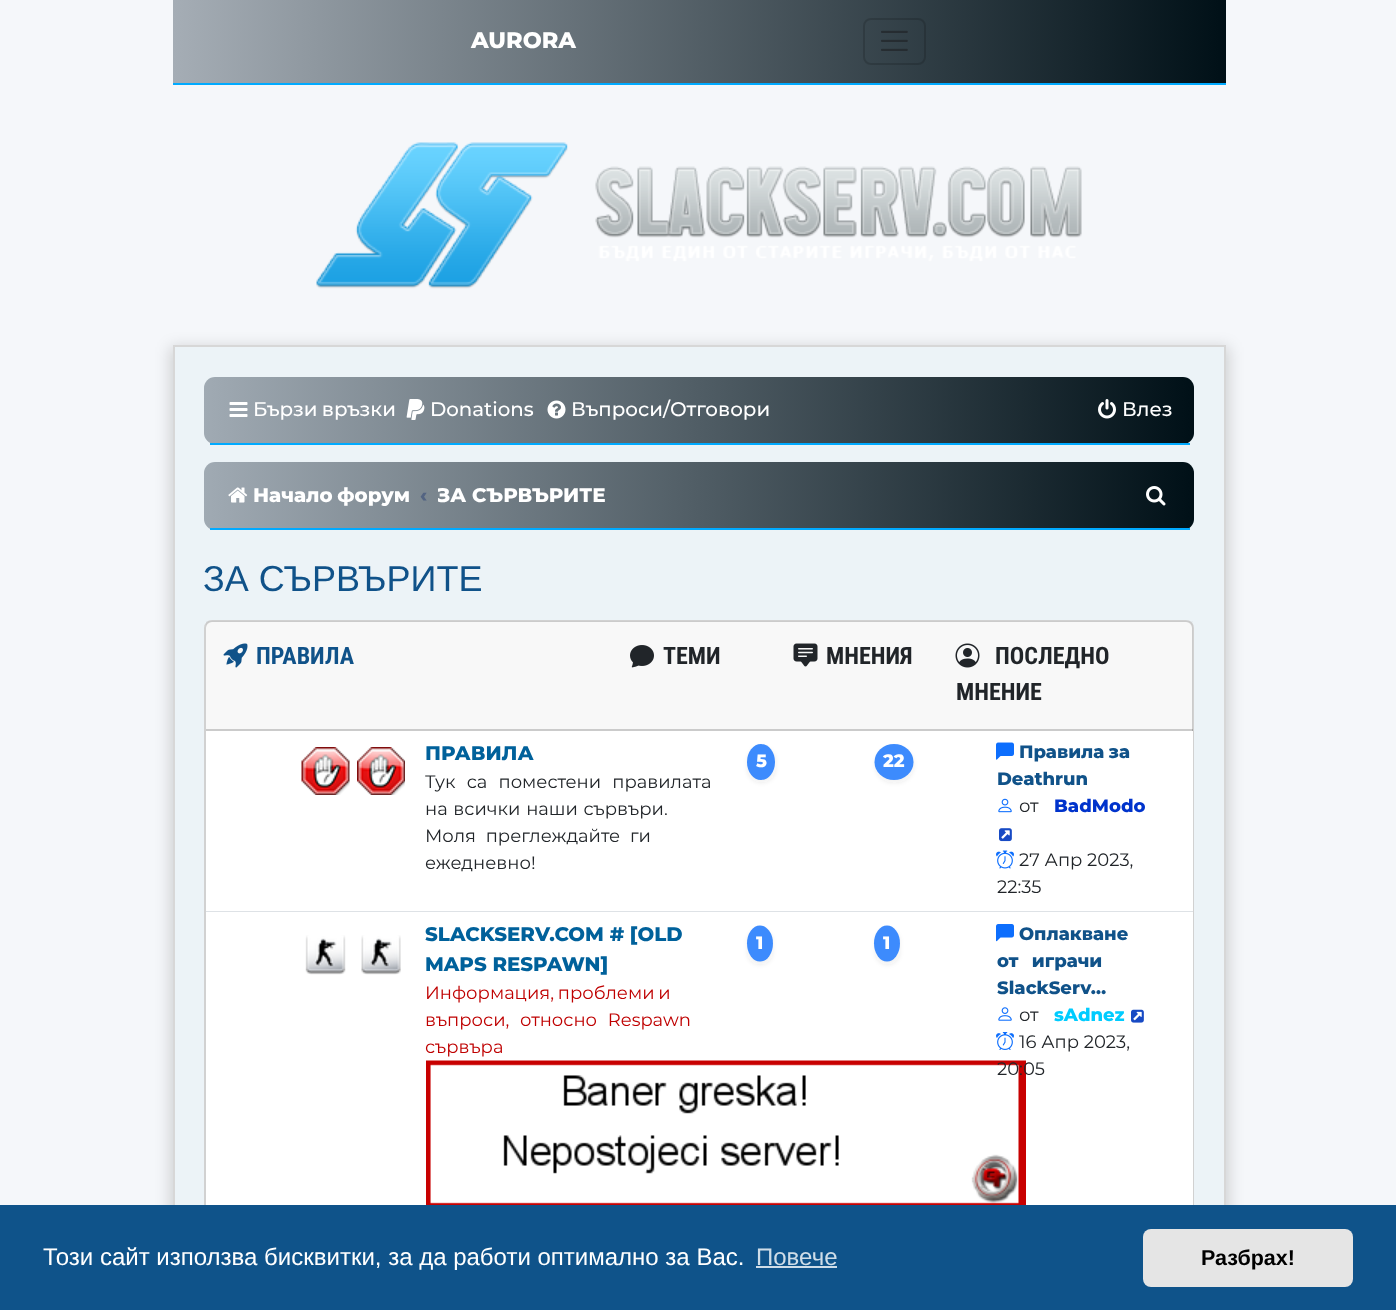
<?xml version="1.0" encoding="UTF-8"?>
<svg xmlns="http://www.w3.org/2000/svg" width="1396" height="1310">
    <defs>
        <linearGradient id="g1" gradientUnits="userSpaceOnUse" x1="173" y1="41" x2="1226" y2="41"><stop offset="0" stop-color="#A5ADB5"/><stop offset="1" stop-color="#001017"/></linearGradient>
        <filter id="blur1" x="-50%" y="-200%" width="200%" height="500%"><feGaussianBlur stdDeviation="7.5"/></filter>
        <linearGradient id="g2" gradientUnits="userSpaceOnUse" x1="204" y1="410" x2="1194" y2="410"><stop offset="0" stop-color="#A0AAB3"/><stop offset="1" stop-color="#001017"/></linearGradient>
        <linearGradient id="g3" gradientUnits="userSpaceOnUse" x1="204" y1="495" x2="1194" y2="495"><stop offset="0" stop-color="#A0AAB3"/><stop offset="1" stop-color="#001017"/></linearGradient>
        <clipPath id="clip1"><rect x="438" y="474" width="168" height="44"/></clipPath>
        <filter id="blur2" x="-50%" y="-200%" width="200%" height="500%"><feGaussianBlur stdDeviation="2"/></filter>
    </defs>
    <rect width="100%" height="100%" fill="#F5F7FA"/>
    <rect x="173" y="0" width="1053" height="83" fill="url(#g1)"/>
    <rect x="173" y="83" width="1053" height="2" fill="#00AAFF"/>
    <text x="471" y="48" font-family="Montserrat" font-size="22.5" font-weight="800" fill="#FFFFFF">AURORA</text>
    <rect x="864" y="19" width="61" height="45" rx="7" fill="none" stroke="#000000" stroke-opacity="0.15" stroke-width="2"/>
    <image x="881" y="30" width="27" height="21" href="img_01.png"/>
    <image x="316" y="142" width="766" height="147" href="img_02.png"/>
    <rect x="170" y="347" width="1059" height="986" fill="#000000" fill-opacity="0.16" filter="url(#blur1)"/>
    <rect x="175" y="347" width="1049" height="858" fill="#ECF3F7"/>
    <rect x="174" y="346" width="1051" height="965" fill="none" stroke="#D7D7D7" stroke-width="2"/>
    <rect x="204" y="377" width="990" height="67" rx="11" fill="url(#g2)"/>
    <rect x="210" y="443" width="980" height="2" fill="#00AAFF"/>
    <image x="229" y="402" width="19" height="15" href="img_03.png"/>
    <text x="253" y="416" word-spacing="-1" font-family="Montserrat" font-size="19.75" font-weight="500" fill="#FFFFFF">Бързи връзки</text>
    <image x="406" y="399" width="19" height="21" href="img_04.png"/>
    <text x="430" y="416" font-family="Montserrat" font-size="19.75" font-weight="500" fill="#FFFFFF">Donations</text>
    <image x="547" y="400" width="19" height="19" href="img_05.png"/>
    <text x="571" y="416" font-family="Montserrat" font-size="19.75" font-weight="500" fill="#FFFFFF">Въпроси/Отговори</text>
    <image x="1098" y="399" width="18" height="20" href="img_06.png"/>
    <text x="1122" y="416" font-family="Montserrat" font-size="19.75" font-weight="500" fill="#FFFFFF">Влез</text>
    <rect x="204" y="462" width="990" height="68" rx="11" fill="url(#g3)"/>
    <rect x="210" y="528" width="980" height="2" fill="#00AAFF"/>
    <image x="228" y="487" width="20" height="16" href="img_07.png"/>
    <text x="253" y="502" word-spacing="-1" font-family="Montserrat" font-size="19.75" font-weight="800" fill="#FFFFFF">Начало форум</text>
    <text x="420" y="502" font-family="Montserrat" font-size="19.75" font-weight="800" fill="#536482">‹</text>
    <g clip-path="url(#clip1)">
        <text x="437" y="502" font-family="Montserrat" font-size="19.75" font-weight="800" fill="#FFFFFF">ЗА СЪРВЪРИТЕ</text>
    </g>
    <image x="1146" y="486" width="20" height="20" href="img_08.png"/>
    <text x="203" y="591" font-family="Liberation Sans" font-size="36" fill="#105289">ЗА СЪРВЪРИТЕ</text>
    <rect x="204" y="620" width="990" height="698" rx="8" fill="#FFFFFF"/>
    <rect x="205" y="621" width="988" height="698" rx="7" fill="none" stroke="#000000" stroke-opacity="0.18" stroke-width="2"/>
    <rect x="206" y="621" width="987" height="110" fill="#212529" fill-opacity="0.03"/>
    <rect x="206" y="729" width="987" height="2" fill="#000000" fill-opacity="0.18"/>
    <image x="223" y="643" width="25" height="25" href="img_09.png"/>
    <text x="256" y="664" font-family="Roboto Condensed" font-size="24" font-weight="700" fill="#105289">ПРАВИЛА</text>
    <image x="630" y="645" width="24" height="23" href="img_10.png"/>
    <text x="663" y="664" font-family="Roboto Condensed" font-size="24" font-weight="700" fill="#212529">ТЕМИ</text>
    <image x="793" y="643" width="25" height="24" href="img_11.png"/>
    <text x="826" y="664" font-family="Roboto Condensed" font-size="24" font-weight="700" fill="#212529">МНЕНИЯ</text>
    <image x="955" y="643" width="25" height="25" href="img_12.png"/>
    <text x="995" y="664" font-family="Roboto Condensed" font-size="24" font-weight="700" fill="#212529">ПОСЛЕДНО</text>
    <text x="956" y="700" font-family="Roboto Condensed" font-size="24" font-weight="700" fill="#212529">МНЕНИЕ</text>
    <rect x="1192" y="731" width="1" height="180" fill="#FFFFFF"/>
    <rect x="206" y="911" width="987" height="1" fill="#DEE2E6"/>
    <image x="301" y="747" width="49" height="48" href="img_13.png"/>
    <image x="357" y="747" width="48" height="48" href="img_14.png"/>
    <text x="425" y="760" font-family="Montserrat" font-size="19.75" font-weight="800" fill="#00619B">ПРАВИЛА</text>
    <text font-family="Montserrat" font-size="18" fill="#212529">
        <tspan x="425" y="788" word-spacing="6.5">Тук са поместени правилата</tspan>
        <tspan x="425" y="815" word-spacing="1">на всички наши сървъри.</tspan>
        <tspan x="425" y="842" word-spacing="5">Моля преглеждайте ги</tspan>
        <tspan x="425" y="869">ежедневно!</tspan>
    </text>
    <rect x="747" y="747" width="29" height="36" rx="14.5" fill="#333333" fill-opacity="0.07" filter="url(#blur2)"/>
    <ellipse cx="761" cy="762" rx="14" ry="18" fill="#3D8BFD"/>
    <text x="756" y="767" font-family="Montserrat" font-size="18" font-weight="800" fill="#FFFFFF">5</text>
    <rect x="875" y="747" width="39" height="36" rx="18" fill="#333333" fill-opacity="0.07" filter="url(#blur2)"/>
    <ellipse cx="894" cy="762" rx="19.5" ry="18" fill="#3D8BFD"/>
    <text x="883" y="767" font-family="Montserrat" font-size="18" font-weight="800" fill="#FFFFFF">22</text>
    <image x="996" y="742" width="18" height="18" href="img_15.png"/>
    <text x="1019" y="758" word-spacing="-1" font-family="Montserrat" font-size="18" font-weight="800" fill="#105289">Правила за</text>
    <text x="997" y="785" font-family="Montserrat" font-size="18" font-weight="800" fill="#105289">Deathrun</text>
    <image x="998" y="798" width="14" height="15" href="img_16.png"/>
    <text x="1019" y="812" font-family="Montserrat" font-size="18" fill="#212529">от</text>
    <text x="1054" y="812" font-family="Montserrat" font-size="18" font-weight="800" fill="#0033CC">BadModo</text>
    <image x="999" y="828" width="13" height="14" href="img_17.png"/>
    <image x="996" y="850" width="18" height="19" href="img_18.png"/>
    <text x="1019" y="866" font-family="Montserrat" font-size="18" fill="#212529">27 Апр 2023,</text>
    <text x="997" y="893" font-family="Montserrat" font-size="18" fill="#212529">22:35</text>
    <rect x="1192" y="912" width="1" height="293" fill="#FFFFFF"/>
    <image x="305" y="935" width="41" height="40" href="img_19.png"/>
    <image x="361" y="935" width="40" height="40" href="img_20.png"/>
    <text font-family="Montserrat" font-size="19.75" font-weight="800" fill="#00619B">
        <tspan x="425" y="941">SLACKSERV.COM # [OLD</tspan>
        <tspan x="425" y="971">MAPS RESPAWN]</tspan>
    </text>
    <text font-family="Montserrat" font-size="18" fill="#BF0000">
        <tspan x="425" y="999" word-spacing="-1">Информация, проблеми и</tspan>
        <tspan x="425" y="1026" word-spacing="6">въпроси, относно Respawn</tspan>
        <tspan x="425" y="1053">сървъра</tspan>
    </text>
    <image x="426" y="1060" width="600" height="145" href="img_21.png"/>
    <rect x="747" y="929" width="26" height="36" rx="13" fill="#333333" fill-opacity="0.07" filter="url(#blur2)"/>
    <ellipse cx="760" cy="943.5" rx="13" ry="18" fill="#3D8BFD"/>
    <text x="756" y="949" font-family="Montserrat" font-size="18" font-weight="800" fill="#FFFFFF">1</text>
    <rect x="875" y="929" width="25" height="36" rx="12.5" fill="#333333" fill-opacity="0.07" filter="url(#blur2)"/>
    <ellipse cx="887" cy="943.5" rx="13" ry="18" fill="#3D8BFD"/>
    <text x="883" y="949" font-family="Montserrat" font-size="18" font-weight="800" fill="#FFFFFF">1</text>
    <image x="996" y="924" width="18" height="18" href="img_22.png"/>
    <text x="1019" y="940" font-family="Montserrat" font-size="18" font-weight="800" fill="#105289">Оплакване</text>
    <text font-family="Montserrat" font-size="18" font-weight="800" fill="#105289">
        <tspan x="997" y="967" word-spacing="8">от играчи</tspan>
        <tspan x="997" y="994">SlackServ…</tspan>
    </text>
    <image x="998" y="1007" width="14" height="14" href="img_23.png"/>
    <text x="1019" y="1021" font-family="Montserrat" font-size="18" fill="#212529">от</text>
    <text x="1054" y="1021" font-family="Montserrat" font-size="18" font-weight="800" fill="#00CCFF">sAdnez</text>
    <image x="1131" y="1009" width="13" height="14" href="img_24.png"/>
    <image x="996" y="1032" width="18" height="18" href="img_25.png"/>
    <text x="1019" y="1048" font-family="Montserrat" font-size="18" fill="#212529">16 Апр 2023,</text>
    <text x="997" y="1075" font-family="Montserrat" font-size="18" fill="#212529">20:05</text>
    <rect x="0" y="1205" width="1396" height="105" fill="#0F538A"/>
    <text x="43" y="1265" font-family="Liberation Sans" font-size="24" fill="#FFFFFF">Този сайт използва бисквитки, за да работи оптимално за Вас.</text>
    <text x="756" y="1265" font-family="Liberation Sans" font-size="24" fill="#CFDDE8">Повече</text>
    <rect x="756" y="1266" width="81" height="2" fill="#CFDDE8"/>
    <rect x="1143" y="1229" width="210" height="58" rx="8" fill="#E5E5E5"/>
    <text x="1201" y="1265" font-family="Liberation Sans" font-size="21.5" font-weight="700" fill="#000000">Разбрах!</text>
</svg>
